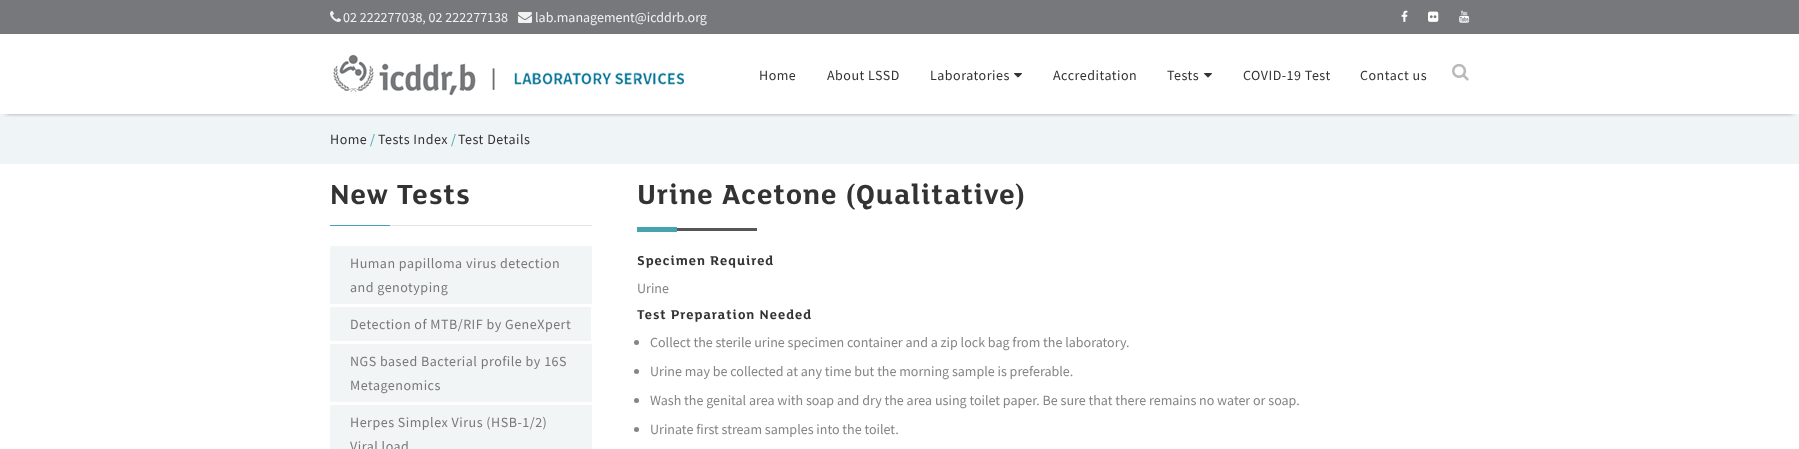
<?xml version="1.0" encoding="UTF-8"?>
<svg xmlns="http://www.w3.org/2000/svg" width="1799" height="449">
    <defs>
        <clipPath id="clip1"><rect x="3" y="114" width="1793" height="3"/></clipPath>
        <filter id="blur1" x="-50%" y="-200%" width="200%" height="500%"><feGaussianBlur stdDeviation="2.5"/></filter>
    </defs>
    <rect width="100%" height="100%" fill="#FFFFFF"/>
    <rect x="0" y="0" width="1799" height="34" fill="#76787C"/>
    <image x="330" y="11" width="11" height="11" href="img_01.png"/>
    <text x="343" y="22" font-family="Source Sans Pro" font-size="14" fill="#F1F1F1">02 222277038, 02 222277138</text>
    <image x="518" y="12" width="14" height="11" href="img_02.png"/>
    <text x="535" y="22" font-family="Source Sans Pro" font-size="14" fill="#F1F1F1">lab.management@icddrb.org</text>
    <image x="1401" y="10" width="7" height="12" href="img_03.png"/>
    <image x="1428" y="11" width="11" height="11" href="img_04.png"/>
    <image x="1459" y="10" width="11" height="13" href="img_05.png"/>
    <rect x="0" y="114" width="1799" height="50" fill="#EFF4F7"/>
    <g clip-path="url(#clip1)">
        <rect x="6" y="46" width="1787" height="67" fill="#000000" fill-opacity="0.5" filter="url(#blur1)"/>
    </g>
    <image x="333" y="54" width="351" height="42" href="img_06.png"/>
    <text x="759" y="80" font-family="Source Sans Pro" font-size="14" letter-spacing="0.5" fill="#333333">Home</text>
    <text x="827" y="80" font-family="Source Sans Pro" font-size="14" letter-spacing="0.5" fill="#333333">About LSSD</text>
    <text x="930" y="80" font-family="Source Sans Pro" font-size="14" letter-spacing="0.5" fill="#333333">Laboratories</text>
    <image x="1014" y="73" width="8" height="5" href="img_07.png"/>
    <text x="1053" y="80" font-family="Source Sans Pro" font-size="14" letter-spacing="0.5" fill="#333333">Accreditation</text>
    <text x="1167" y="80" font-family="Source Sans Pro" font-size="14" letter-spacing="0.5" fill="#333333">Tests</text>
    <image x="1204" y="73" width="8" height="5" href="img_07.png"/>
    <text x="1243" y="80" font-family="Source Sans Pro" font-size="14" letter-spacing="0.5" fill="#333333">COVID-19 Test</text>
    <text x="1360" y="80" font-family="Source Sans Pro" font-size="14" letter-spacing="0.5" fill="#333333">Contact us</text>
    <image x="1452" y="63" width="17" height="18" href="img_08.png"/>
    <text x="330" y="144" font-family="Source Sans Pro" font-size="14" letter-spacing="0.5" fill="#333333">Home</text>
    <text x="370" y="144" font-family="Source Sans Pro" font-size="14" fill="#47A3AD">/</text>
    <text x="378" y="144" font-family="Source Sans Pro" font-size="14" letter-spacing="0.5" fill="#333333">Tests Index</text>
    <text x="451" y="144" font-family="Source Sans Pro" font-size="14" fill="#47A3AD">/</text>
    <text x="458" y="144" font-family="Source Sans Pro" font-size="14" letter-spacing="0.5" fill="#333333">Test Details</text>
    <text x="330" y="204" font-family="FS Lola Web" font-size="30" font-weight="700" letter-spacing="1" fill="#333333">New Tests</text>
    <rect x="330" y="225" width="60" height="1" fill="#47A3AD"/>
    <rect x="390" y="225" width="202" height="1" fill="#E3E3E3"/>
    <rect x="330" y="246" width="262" height="58" fill="#F2F5F5"/>
    <text font-family="Source Sans Pro" font-size="14" letter-spacing="0.5" fill="#797979">
        <tspan x="350" y="268">Human papilloma virus detection</tspan>
        <tspan x="350" y="292">and genotyping</tspan>
    </text>
    <rect x="330" y="307" width="261" height="34" fill="#F2F5F5"/>
    <text x="350" y="329" font-family="Source Sans Pro" font-size="14" letter-spacing="0.5" fill="#797979">Detection of MTB/RIF by GeneXpert</text>
    <rect x="330" y="344" width="262" height="58" fill="#F2F5F5"/>
    <text font-family="Source Sans Pro" font-size="14" letter-spacing="0.5" fill="#797979">
        <tspan x="350" y="366">NGS based Bacterial profile by 16S</tspan>
        <tspan x="350" y="390">Metagenomics</tspan>
    </text>
    <rect x="330" y="405" width="262" height="44" fill="#F2F5F5"/>
    <text font-family="Source Sans Pro" font-size="14" letter-spacing="0.5" fill="#797979">
        <tspan x="350" y="427">Herpes Simplex Virus (HSB-1/2)</tspan>
        <tspan x="350" y="451">Viral load</tspan>
    </text>
    <text x="637" y="204" font-family="FS Lola Web" font-size="30" font-weight="700" letter-spacing="1" fill="#333333">Urine Acetone (Qualitative)</text>
    <rect x="637" y="227" width="40" height="5" fill="#47A3AD"/>
    <rect x="677" y="228" width="80" height="3" fill="#565656"/>
    <text x="637" y="265" font-family="FS Lola Web" font-size="14" font-weight="700" letter-spacing="1" fill="#333333">Specimen Required</text>
    <text x="637" y="293" font-family="Source Sans Pro" font-size="14" fill="#858585">Urine</text>
    <text x="637" y="319" font-family="FS Lola Web" font-size="14" font-weight="700" letter-spacing="1" fill="#333333">Test Preparation Needed</text>
    <circle cx="636.5" cy="342.5" r="2.5" fill="#858585"/>
    <text x="650" y="347" font-family="Source Sans Pro" font-size="14" fill="#858585">Collect the sterile urine specimen container and a zip lock bag from the laboratory.</text>
    <circle cx="636.5" cy="371.5" r="2.5" fill="#858585"/>
    <text x="650" y="376" font-family="Source Sans Pro" font-size="14" fill="#858585">Urine may be collected at any time but the morning sample is preferable.</text>
    <circle cx="636.5" cy="400.5" r="2.5" fill="#858585"/>
    <text x="650" y="405" font-family="Source Sans Pro" font-size="14" fill="#858585">Wash the genital area with soap and dry the area using toilet paper. Be sure that there remains no water or soap.</text>
    <circle cx="636.5" cy="429.5" r="2.5" fill="#858585"/>
    <text x="650" y="434" font-family="Source Sans Pro" font-size="14" fill="#858585">Urinate first stream samples into the toilet.</text>
</svg>
